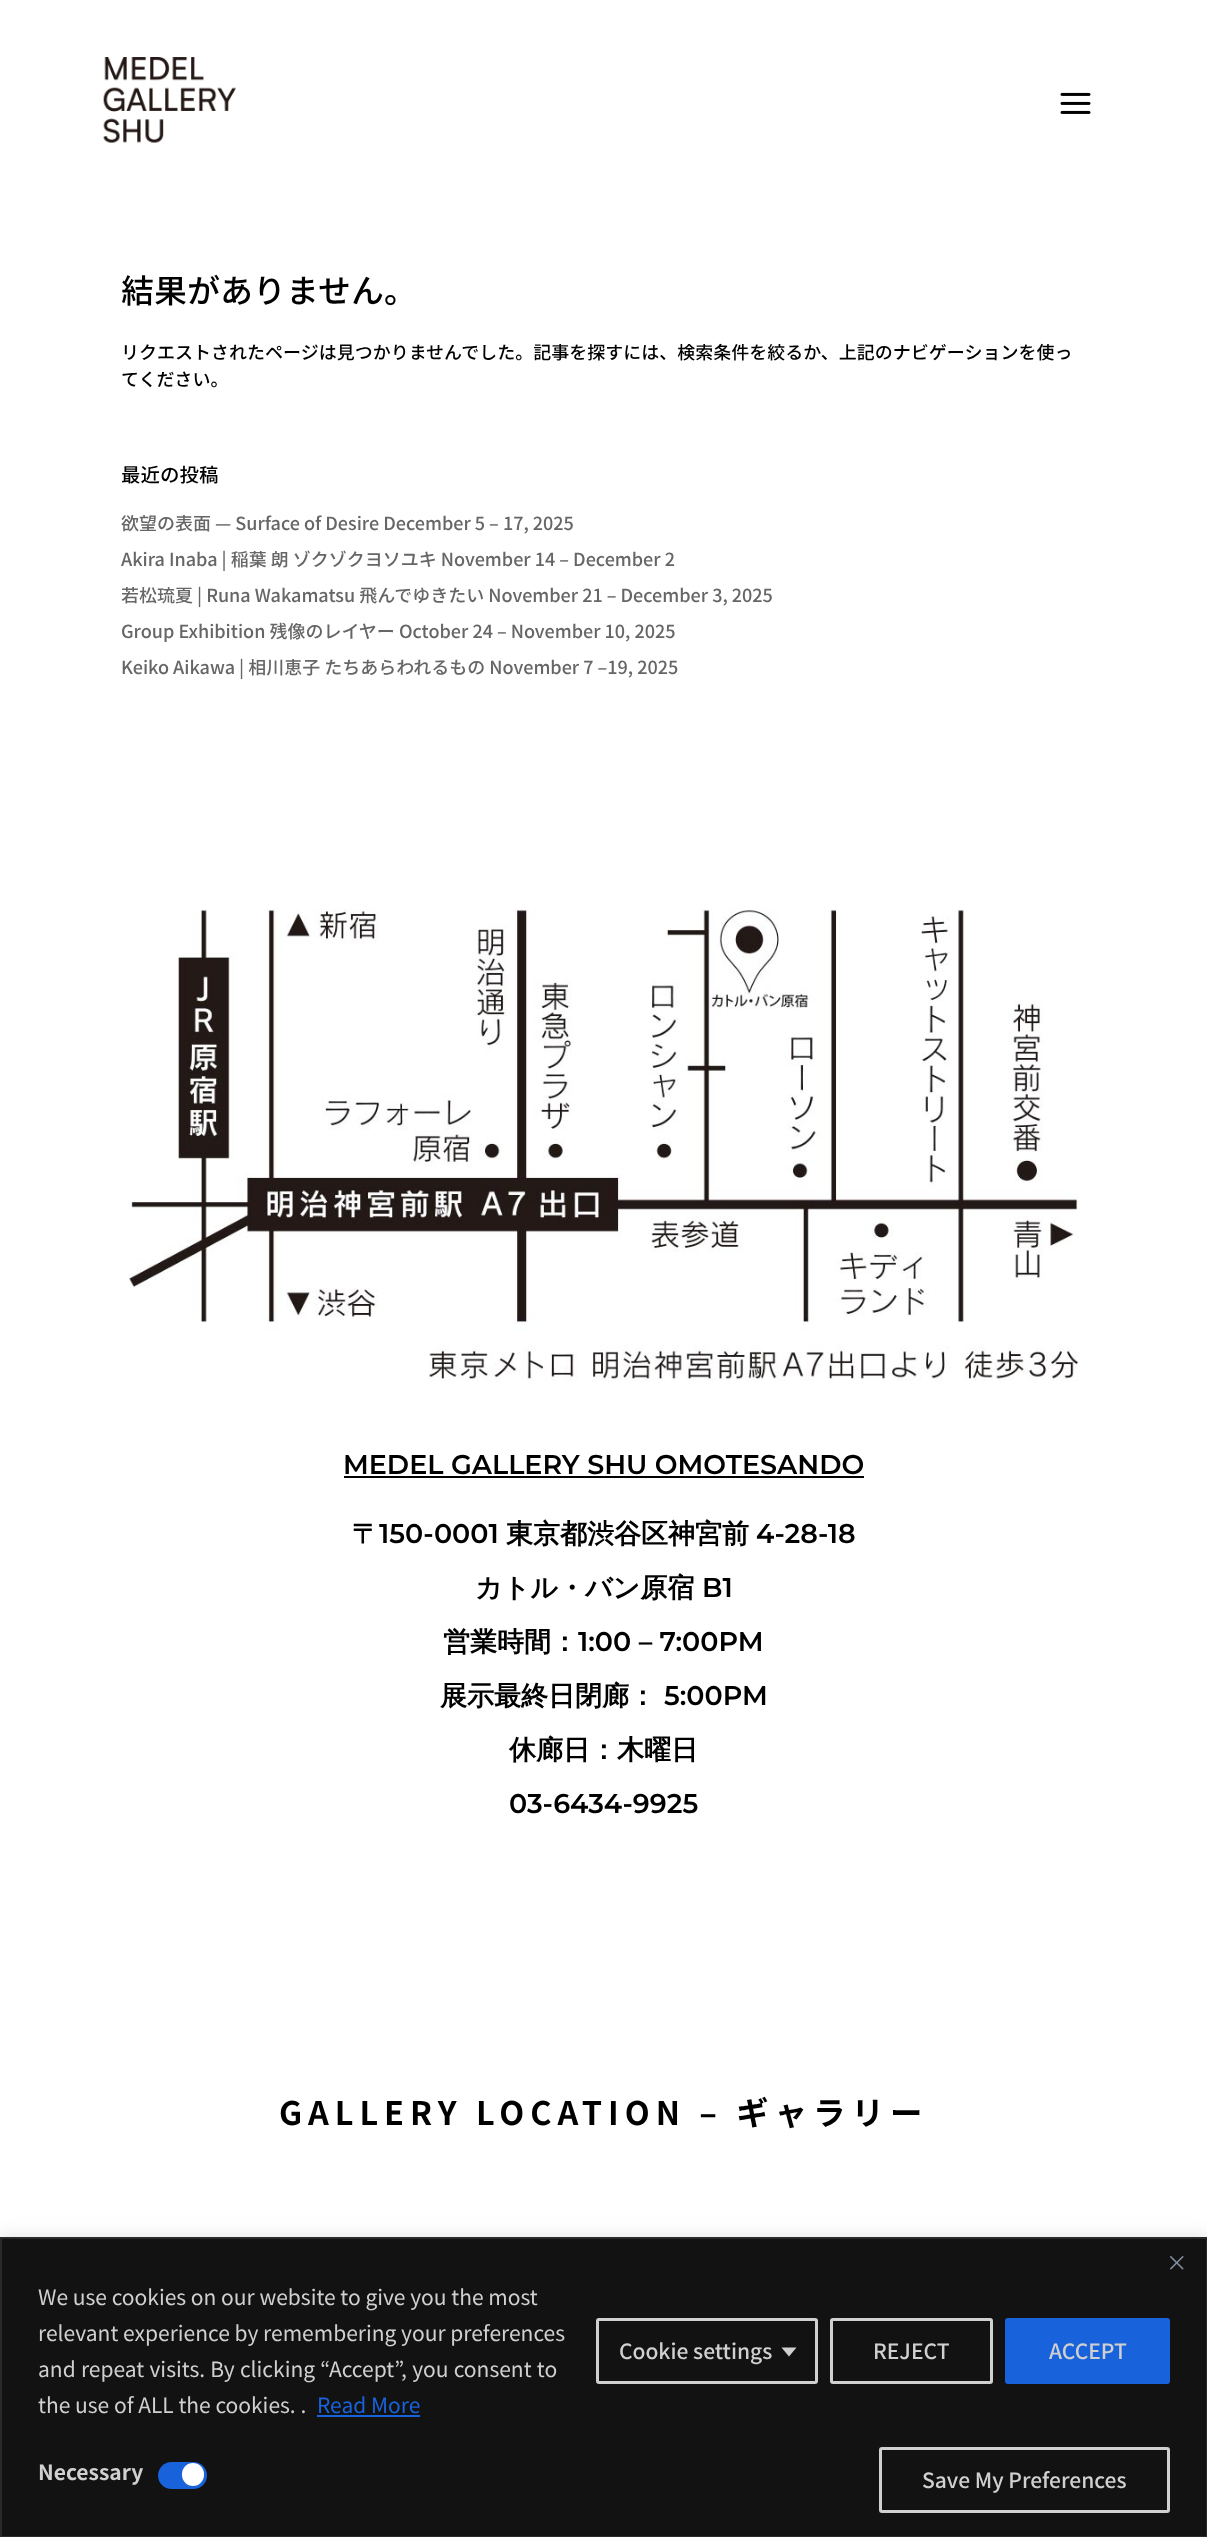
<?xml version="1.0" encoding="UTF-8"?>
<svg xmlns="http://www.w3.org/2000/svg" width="1207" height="2537">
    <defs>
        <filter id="blur1" x="-50%" y="-200%" width="200%" height="500%"><feGaussianBlur stdDeviation="7.5"/></filter>
    </defs>
    <rect width="100%" height="100%" fill="#FFFFFF"/>
    <image x="103" y="57" width="133" height="86" href="img_01.png"/>
    <image x="1060" y="92" width="31" height="22" href="img_02.png"/>
    <text x="121" y="303" font-family="Noto Sans JP" font-size="33" font-weight="500" fill="#000000">結果がありません。</text>
    <text font-family="Noto Sans JP" font-size="18" font-weight="500" fill="#000000">
        <tspan x="121" y="359">リクエストされたページは見つかりませんでした。記事を探すには、検索条件を絞るか、上記のナビゲーションを使っ</tspan>
        <tspan x="121" y="386">てください。</tspan>
    </text>
    <text x="121" y="482" font-family="Noto Sans JP" font-size="19.5" font-weight="500" fill="#000000">最近の投稿</text>
    <text x="121" y="530" font-family="Noto Sans JP" font-size="18" font-weight="500" fill="#666666">欲望の表面 — Surface of Desire December 5 – 17, 2025</text>
    <text x="121" y="566" font-family="Noto Sans JP" font-size="18" font-weight="500" fill="#666666">Akira Inaba | 稲葉 朗 ゾクゾクヨソユキ November 14 – December 2</text>
    <text x="121" y="602" font-family="Noto Sans JP" font-size="18" font-weight="500" fill="#666666">若松琉夏 | Runa Wakamatsu 飛んでゆきたい November 21 – December 3, 2025</text>
    <text x="121" y="638" font-family="Noto Sans JP" font-size="18" font-weight="500" fill="#666666">Group Exhibition 残像のレイヤー October 24 – November 10, 2025</text>
    <text x="121" y="674" font-family="Noto Sans JP" font-size="18" font-weight="500" fill="#666666">Keiko Aikawa | 相川恵子 たちあらわれるもの November 7 –19, 2025</text>
    <image x="128" y="909" width="951" height="472" href="img_03.png"/>
    <text x="343" y="1474" font-family="Montserrat" font-size="27" font-weight="600" fill="#000000">MEDEL GALLERY SHU OMOTESANDO</text>
    <rect x="344" y="1476" width="520" height="2" fill="#000000"/>
    <text x="352" y="1543" font-family="WenQuanYi Zen Hei" font-size="27" font-weight="700" fill="#000000">〒</text>
    <text x="379" y="1543" font-family="Montserrat" font-size="27" font-weight="600" fill="#000000">150-0001</text>
    <text x="506" y="1543" font-family="WenQuanYi Zen Hei" font-size="27" font-weight="700" fill="#000000">東京都渋谷区神宮前</text>
    <text x="756" y="1543" font-family="Montserrat" font-size="27" font-weight="600" fill="#000000">4-28-18</text>
    <text x="475" y="1597" font-family="WenQuanYi Zen Hei" font-size="27" font-weight="700" fill="#000000">カトル・バン原宿</text>
    <text x="702" y="1597" font-family="Montserrat" font-size="27" font-weight="600" fill="#000000">B1</text>
    <text x="443" y="1651" font-family="WenQuanYi Zen Hei" font-size="27" font-weight="700" fill="#000000">営業時間：</text>
    <text x="578" y="1651" font-family="Montserrat" font-size="27" font-weight="600" fill="#000000">1:00 – 7:00PM</text>
    <text x="440" y="1705" font-family="WenQuanYi Zen Hei" font-size="27" font-weight="700" fill="#000000">展示最終日閉廊：</text>
    <text x="664" y="1705" font-family="Montserrat" font-size="27" font-weight="600" fill="#000000">5:00PM</text>
    <text x="509" y="1759" font-family="WenQuanYi Zen Hei" font-size="27" font-weight="700" fill="#000000">休廊日：木曜日</text>
    <text x="509" y="1813" font-family="Montserrat" font-size="27" font-weight="600" fill="#000000">03-6434-9925</text>
    <text x="279" y="2125" font-family="Noto Sans JP" font-size="32.4" font-weight="700" letter-spacing="6" fill="#000000">GALLERY LOCATION – ギャラリー</text>
    <rect x="0" y="2235" width="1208" height="302" fill="#ACABAB" fill-opacity="0.3" filter="url(#blur1)"/>
    <rect x="1" y="2238" width="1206" height="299" fill="#121212" stroke="#2A2A2A" stroke-width="2"/>
    <image x="1170" y="2256" width="14" height="14" href="img_04.png"/>
    <text font-family="Noto Sans JP" font-size="21" fill="#D0D0D0">
        <tspan x="38" y="2305">We use cookies on our website to give you the most</tspan>
        <tspan x="38" y="2341">relevant experience by remembering your preferences</tspan>
        <tspan x="38" y="2377" word-spacing="0.5">and repeat visits. By clicking “Accept”, you consent to</tspan>
        <tspan x="38" y="2413">the use of ALL the cookies. .</tspan>
    </text>
    <text x="317" y="2413" font-family="Noto Sans JP" font-size="21" fill="#1863DC">Read More</text>
    <rect x="317" y="2415" width="103" height="2" fill="#1863DC"/>
    <rect x="597.5" y="2319.5" width="219" height="63" rx="1.5" fill="none" stroke="#D0D0D0" stroke-width="3"/>
    <text x="619" y="2359" font-family="Noto Sans JP" font-size="21" font-weight="500" fill="#D0D0D0">Cookie settings</text>
    <path d="M 781.5 2347.5 H 796.5 L 789 2356.5 Z" fill="#D0D0D0"/>
    <rect x="831.5" y="2319.5" width="160" height="63" rx="1.5" fill="none" stroke="#D0D0D0" stroke-width="3"/>
    <text x="873" y="2359" font-family="Noto Sans JP" font-size="21" font-weight="500" fill="#D0D0D0">REJECT</text>
    <rect x="1006.5" y="2319.5" width="162" height="63" rx="1.5" fill="#1863DC" stroke="#1863DC" stroke-width="3"/>
    <text x="1049" y="2359" font-family="Noto Sans JP" font-size="21" font-weight="500" fill="#D0D0D0">ACCEPT</text>
    <text x="38" y="2480" font-family="Noto Sans JP" font-size="21" font-weight="700" fill="#D0D0D0">Necessary</text>
    <rect x="158" y="2462" width="49" height="27" rx="13.5" fill="#1863DC"/>
    <rect x="182" y="2463" width="22" height="23" rx="11" fill="#FFFFFF"/>
    <rect x="880.5" y="2448.5" width="288" height="63" rx="1.5" fill="none" stroke="#D0D0D0" stroke-width="3"/>
    <text x="922" y="2488" font-family="Noto Sans JP" font-size="21" font-weight="500" fill="#D0D0D0">Save My Preferences</text>
</svg>
